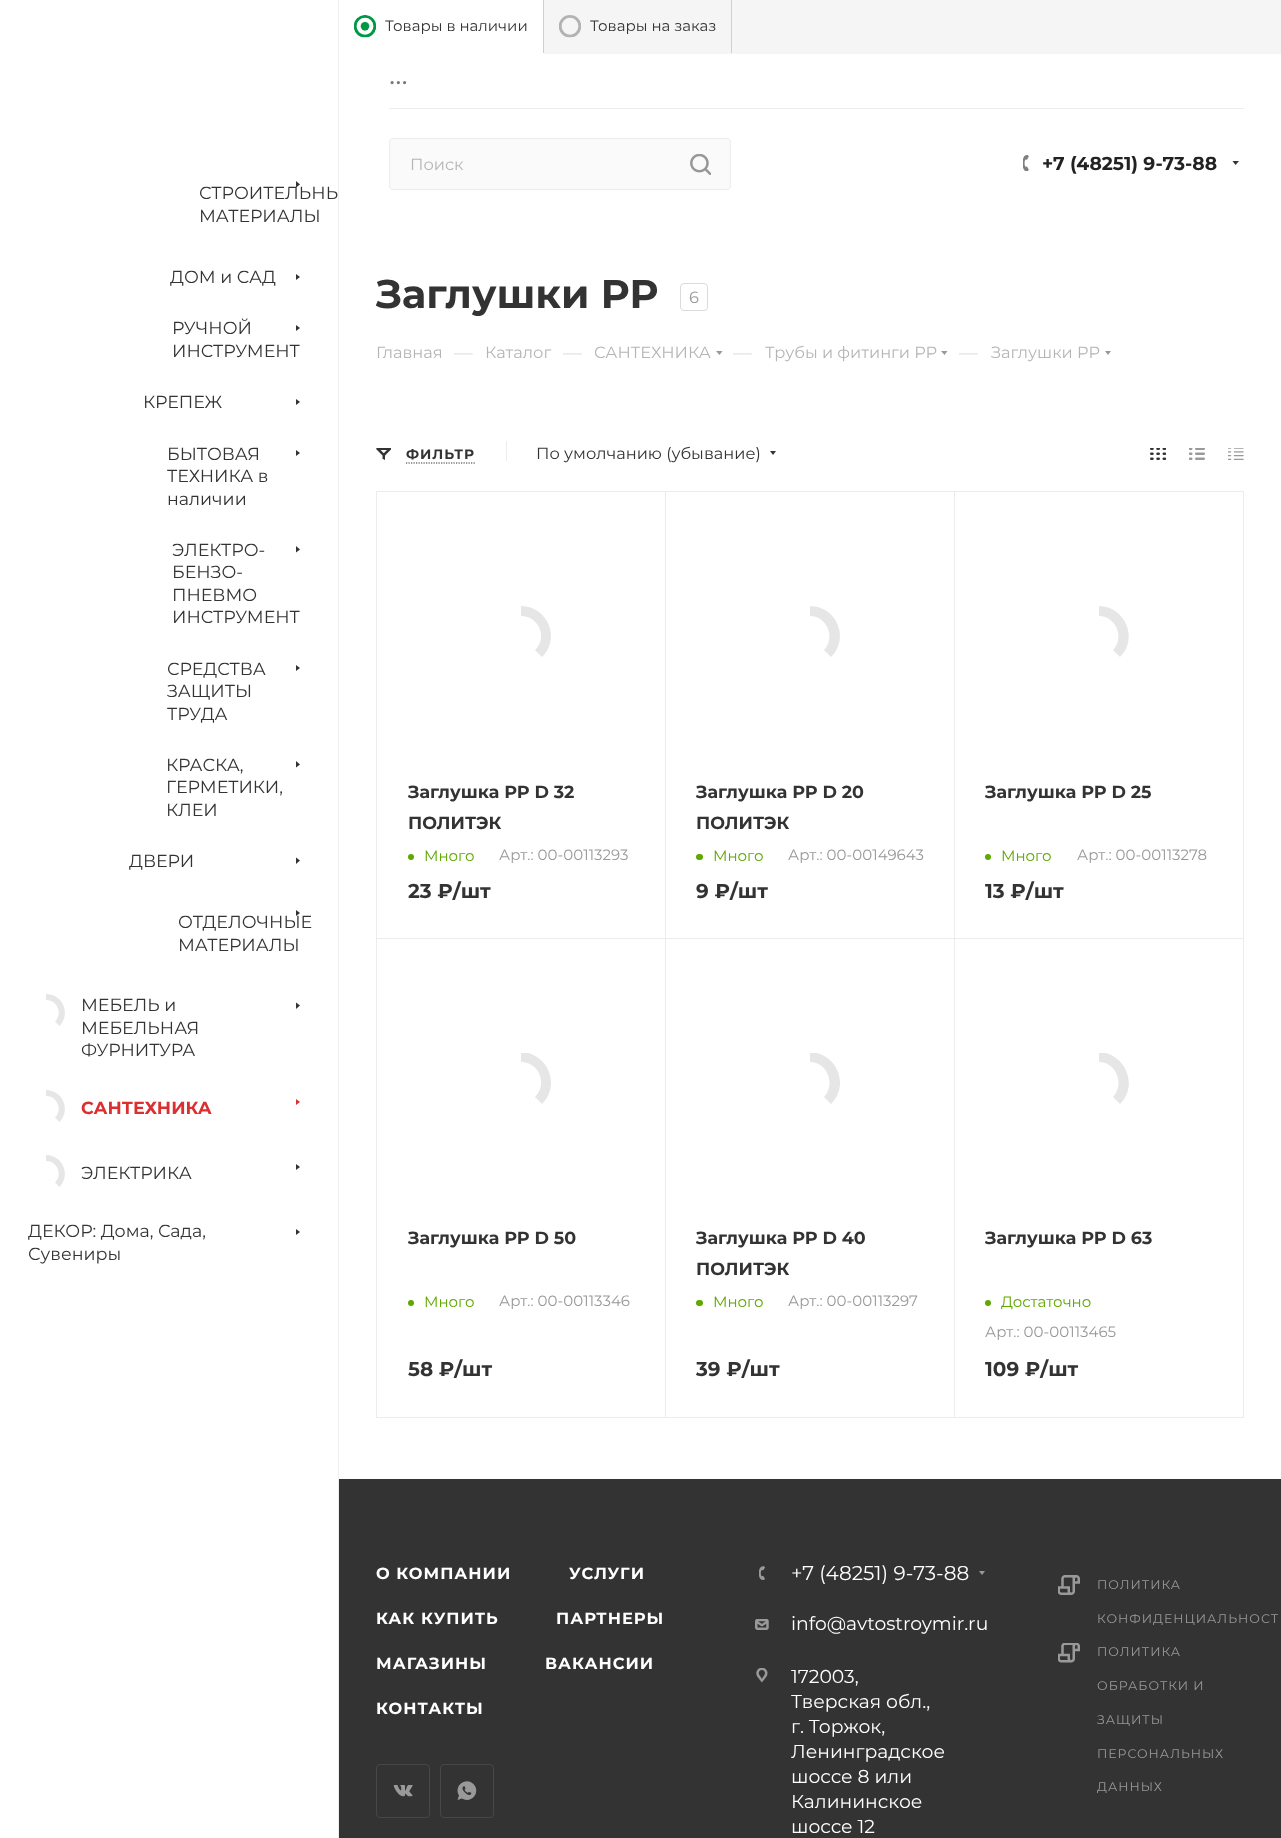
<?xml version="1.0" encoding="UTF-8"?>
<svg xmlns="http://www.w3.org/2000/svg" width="1281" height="1838">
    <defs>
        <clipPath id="clip1"><rect x="10" y="159" width="328" height="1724"/></clipPath>
        <clipPath id="clip2"><rect x="491" y="1053" width="60" height="60"/></clipPath>
        <clipPath id="clip3"><rect x="780" y="1053" width="60" height="60"/></clipPath>
        <clipPath id="clip4"><rect x="1069" y="1053" width="60" height="60"/></clipPath>
    </defs>
    <rect width="100%" height="100%" fill="#FFFFFF"/>
    <rect x="544" y="0" width="737" height="54" fill="#F5F5F5"/>
    <rect x="543" y="0" width="1" height="54" fill="#D0D0D0"/>
    <rect x="543" y="53" width="1" height="1" fill="#FFFFFF"/>
    <image x="354" y="15" width="22" height="23" href="img_01.png"/>
    <text x="385" y="31" font-family="Montserrat" font-size="15" fill="#333333">Товары в наличии</text>
    <rect x="731" y="0" width="1" height="54" fill="#D0D0D0"/>
    <rect x="731" y="53" width="2" height="1" fill="#F5F5F5"/>
    <image x="559" y="15" width="22" height="23" href="img_02.png"/>
    <text x="590" y="31" font-family="Montserrat" font-size="15" fill="#333333">Товары на заказ</text>
    <text x="390" y="84" font-family="Montserrat" font-size="16" font-weight="700" letter-spacing="2" fill="#777777">...</text>
    <rect x="389" y="108" width="855" height="1" fill="#EDEDED"/>
    <rect x="389.5" y="138.5" width="341" height="51" rx="3.5" fill="#FAFAFA" stroke="#ECECEC"/>
    <text x="410" y="170" font-family="Montserrat" font-size="16.25" fill="#B6B5B5">Поиск</text>
    <image x="690" y="154" width="21" height="21" href="img_03.png"/>
    <image x="1023" y="155" width="6" height="16" href="img_04.png"/>
    <text x="1042" y="170" font-family="Montserrat" font-size="18.75" font-weight="700" fill="#222222">+7 (48251) 9-73-88</text>
    <path d="M 1232.5 161 H 1239 L 1235.5 165 Z" fill="#333333" fill-rule="evenodd"/>
    <rect x="338" y="0" width="1" height="1838" fill="#EEEEEE"/>
    <path d="M 296 187.5 V 181 L 300 184.5 Z" fill="#333333" fill-rule="evenodd"/>
    <g clip-path="url(#clip1)">
        <text x="199" y="199" font-family="Montserrat" font-size="17.5" fill="#333333">СТРОИТЕЛЬНЫ</text>
    </g>
    <text x="199" y="222" font-family="Montserrat" font-size="17.5" fill="#333333">МАТЕРИАЛЫ</text>
    <text x="170" y="283" font-family="Montserrat" font-size="17.5" fill="#333333">ДОМ и САД</text>
    <path d="M 296 280 V 274 L 300 277 Z" fill="#333333" fill-rule="evenodd"/>
    <text font-family="Montserrat" font-size="17.5" fill="#333333">
        <tspan x="172" y="334">РУЧНОЙ</tspan>
        <tspan x="172" y="357">ИНСТРУМЕНТ</tspan>
    </text>
    <path d="M 296 331 V 325 L 300 328 Z" fill="#333333" fill-rule="evenodd"/>
    <text x="143" y="408" font-family="Montserrat" font-size="17.5" fill="#333333">КРЕПЕЖ</text>
    <path d="M 296 405 V 399 L 300 402 Z" fill="#333333" fill-rule="evenodd"/>
    <text font-family="Montserrat" font-size="17.5" fill="#333333">
        <tspan x="167" y="460">БЫТОВАЯ</tspan>
        <tspan x="167" y="482">ТЕХНИКА в</tspan>
        <tspan x="167" y="505">наличии</tspan>
    </text>
    <path d="M 296 456 V 450 L 300 453 Z" fill="#333333" fill-rule="evenodd"/>
    <text font-family="Montserrat" font-size="17.5" fill="#333333">
        <tspan x="172" y="556">ЭЛЕКТРО-</tspan>
        <tspan x="172" y="578">БЕНЗО-</tspan>
        <tspan x="172" y="601">ПНЕВМО</tspan>
        <tspan x="172" y="623">ИНСТРУМЕНТ</tspan>
    </text>
    <path d="M 296 552.5 V 546 L 300 549.5 Z" fill="#333333" fill-rule="evenodd"/>
    <text font-family="Montserrat" font-size="17.5" fill="#333333">
        <tspan x="167" y="675">СРЕДСТВА</tspan>
        <tspan x="167" y="697">ЗАЩИТЫ</tspan>
        <tspan x="167" y="720">ТРУДА</tspan>
    </text>
    <path d="M 296 671 V 665 L 300 668 Z" fill="#333333" fill-rule="evenodd"/>
    <text font-family="Montserrat" font-size="17.5" fill="#333333">
        <tspan x="166" y="771">КРАСКА,</tspan>
        <tspan x="166" y="793">ГЕРМЕТИКИ,</tspan>
        <tspan x="166" y="816">КЛЕИ</tspan>
    </text>
    <path d="M 296 767.5 V 761 L 300 764.5 Z" fill="#333333" fill-rule="evenodd"/>
    <text x="129" y="867" font-family="Montserrat" font-size="17.5" fill="#333333">ДВЕРИ</text>
    <path d="M 296 864 V 857.5 L 300 860.5 Z" fill="#333333" fill-rule="evenodd"/>
    <path d="M 296 916 V 910 L 300 913 Z" fill="#333333" fill-rule="evenodd"/>
    <text font-family="Montserrat" font-size="17.5" fill="#333333">
        <tspan x="178" y="928">ОТДЕЛОЧНЫЕ</tspan>
        <tspan x="178" y="951">МАТЕРИАЛЫ</tspan>
    </text>
    <path d="M 46 994 C 63 994 71 1014 59.5 1026 L 55 1021.5 C 63 1013.5 57.5 1000 46 1000 Z" fill="#E6E6E6"/>
    <text font-family="Montserrat" font-size="17.5" fill="#333333">
        <tspan x="81" y="1011">МЕБЕЛЬ и</tspan>
        <tspan x="81" y="1034">МЕБЕЛЬНАЯ</tspan>
        <tspan x="81" y="1056">ФУРНИТУРА</tspan>
    </text>
    <path d="M 296 1009 V 1002.5 L 300 1005.5 Z" fill="#333333" fill-rule="evenodd"/>
    <path d="M 46 1090 C 63 1090 71 1110.5 59.5 1122 L 55 1117.5 C 63 1110 57.5 1096 46 1096 Z" fill="#E6E6E6"/>
    <text x="81" y="1114" font-family="Montserrat" font-size="17.5" font-weight="700" fill="#DC2F2F">САНТЕХНИКА</text>
    <path d="M 296 1105 V 1099 L 300 1102 Z" fill="#DC2F2F" fill-rule="evenodd"/>
    <path d="M 46 1155 C 63 1155 71 1175.5 59.5 1187 L 55 1182.5 C 63 1175 57.5 1161 46 1161 Z" fill="#E6E6E6"/>
    <text x="81" y="1179" font-family="Montserrat" font-size="17.5" fill="#333333">ЭЛЕКТРИКА</text>
    <path d="M 296 1170 V 1164 L 300 1167 Z" fill="#333333" fill-rule="evenodd"/>
    <text x="28" y="1237" font-family="Montserrat" font-size="17.5" fill="#333333">ДЕКОР: Дома, Сада,</text>
    <path d="M 296 1235 V 1229 L 300 1232 Z" fill="#333333" fill-rule="evenodd"/>
    <text x="28" y="1260" font-family="Montserrat" font-size="17.5" fill="#333333">Сувениры</text>
    <text x="376" y="308" font-family="Montserrat" font-size="40" font-weight="700" fill="#333333">Заглушки PP</text>
    <rect x="680.5" y="283.5" width="27" height="27" rx="3.5" fill="none" stroke="#DBDBDB"/>
    <text x="689" y="303" font-family="Montserrat" font-size="16.25" fill="#999999">6</text>
    <text x="376" y="358" font-family="Montserrat" font-size="16.25" fill="#B6B5B5">Главная</text>
    <text x="454" y="359" font-family="Montserrat" font-size="18.75" fill="#DDDDDD">—</text>
    <text x="485" y="358" font-family="Montserrat" font-size="16.25" fill="#B6B5B5">Каталог</text>
    <text x="563" y="359" font-family="Montserrat" font-size="18.75" fill="#DDDDDD">—</text>
    <text x="594" y="358" font-family="Montserrat" font-size="16.25" fill="#B6B5B5">САНТЕХНИКА</text>
    <path d="M 716 351 H 722.5 L 719.5 355 Z" fill="#999999" fill-rule="evenodd"/>
    <text x="733" y="359" font-family="Montserrat" font-size="18.75" fill="#DDDDDD">—</text>
    <text x="765" y="358" font-family="Montserrat" font-size="16.25" fill="#B6B5B5">Трубы и фитинги РР</text>
    <path d="M 941 351 H 947.5 L 944.5 355 Z" fill="#999999" fill-rule="evenodd"/>
    <text x="959" y="359" font-family="Montserrat" font-size="18.75" fill="#DDDDDD">—</text>
    <text x="991" y="358" font-family="Montserrat" font-size="16.25" fill="#B6B5B5">Заглушки PP</text>
    <path d="M 1105 351 H 1111 L 1108 355 Z" fill="#999999" fill-rule="evenodd"/>
    <image x="376" y="448" width="15" height="12" href="img_05.png"/>
    <text x="406" y="459" font-family="Montserrat" font-size="13.75" font-weight="700" letter-spacing="1" fill="#333333">ФИЛЬТР</text>
    <path d="M 406 463 H 475" fill="none" stroke="#333333" stroke-width="1.2" stroke-dasharray="1.25 1.25"/>
    <rect x="506" y="441" width="1" height="20" fill="#ECECEC"/>
    <text x="536" y="459" font-family="Montserrat" font-size="16.25" fill="#333333">По умолчанию (убывание)</text>
    <path d="M 770 451 H 776 L 773 455 Z" fill="#333333" fill-rule="evenodd"/>
    <image x="1150" y="448" width="16" height="12" href="img_06.png"/>
    <image x="1189" y="448" width="16" height="12" href="img_07.png"/>
    <image x="1228" y="448" width="16" height="12" href="img_08.png"/>
    <rect x="376.5" y="491.5" width="289" height="447" fill="none" stroke="#ECECEC"/>
    <path d="M 521 606 C 548 606 561 639 542 657 L 535 650 C 548 638 539 616 521 616 Z" fill="#E6E6E6"/>
    <text font-family="Montserrat" font-size="17.5" font-weight="700" fill="#333333">
        <tspan x="408" y="798">Заглушка РР D 32</tspan>
        <tspan x="408" y="829">ПОЛИТЭК</tspan>
    </text>
    <circle cx="411" cy="857" r="3" fill="#5FA800"/>
    <text x="424" y="861" font-family="Montserrat" font-size="15" fill="#5FA800">Много</text>
    <text x="499" y="860" font-family="Montserrat" font-size="15" fill="#999999">Арт.: 00-00113293</text>
    <text x="408" y="898" font-family="Montserrat" font-size="20" font-weight="700" fill="#333333">23 ₽/шт</text>
    <rect x="665.5" y="491.5" width="289" height="447" fill="none" stroke="#ECECEC"/>
    <path d="M 810 606 C 837 606 850 639 831 657 L 824 650 C 836 638 827 616 810 616 Z" fill="#E6E6E6"/>
    <text font-family="Montserrat" font-size="17.5" font-weight="700" fill="#333333">
        <tspan x="696" y="798">Заглушка РР D 20</tspan>
        <tspan x="696" y="829">ПОЛИТЭК</tspan>
    </text>
    <rect x="696" y="854" width="7" height="6" rx="3" fill="#5FA800"/>
    <text x="713" y="861" font-family="Montserrat" font-size="15" fill="#5FA800">Много</text>
    <text x="788" y="860" font-family="Montserrat" font-size="15" fill="#999999">Арт.: 00-00149643</text>
    <text x="696" y="898" font-family="Montserrat" font-size="20" font-weight="700" fill="#333333">9 ₽/шт</text>
    <rect x="954.5" y="491.5" width="289" height="447" fill="none" stroke="#ECECEC"/>
    <path d="M 1099 606 C 1125 606 1139 639 1120 657 L 1113 650 C 1125 638 1116 616 1099 616 Z" fill="#E6E6E6"/>
    <text x="985" y="798" font-family="Montserrat" font-size="17.5" font-weight="700" fill="#333333">Заглушка РР D 25</text>
    <circle cx="988" cy="857" r="3" fill="#5FA800"/>
    <text x="1001" y="861" font-family="Montserrat" font-size="15" fill="#5FA800">Много</text>
    <text x="1077" y="860" font-family="Montserrat" font-size="15" fill="#999999">Арт.: 00-00113278</text>
    <text x="985" y="898" font-family="Montserrat" font-size="20" font-weight="700" fill="#333333">13 ₽/шт</text>
    <rect x="376.5" y="938.5" width="289" height="479" fill="none" stroke="#ECECEC"/>
    <g clip-path="url(#clip2)">
        <path d="M 521 1052 C 548 1053 561 1085 542 1104 L 535 1097 C 548 1084 539 1062 521 1062 Z" fill="#E6E6E6"/>
    </g>
    <text x="408" y="1244" font-family="Montserrat" font-size="17.5" font-weight="700" fill="#333333">Заглушка РР D 50</text>
    <circle cx="411" cy="1303" r="3" fill="#5FA800"/>
    <text x="424" y="1307" font-family="Montserrat" font-size="15" fill="#5FA800">Много</text>
    <text x="499" y="1306" font-family="Montserrat" font-size="15" fill="#999999">Арт.: 00-00113346</text>
    <text x="408" y="1376" font-family="Montserrat" font-size="20" font-weight="700" fill="#333333">58 ₽/шт</text>
    <rect x="665.5" y="938.5" width="289" height="479" fill="none" stroke="#ECECEC"/>
    <g clip-path="url(#clip3)">
        <path d="M 810 1052 C 837 1053 850 1085 831 1104 L 824 1097 C 836 1084 827 1062 810 1062 Z" fill="#E6E6E6"/>
    </g>
    <text font-family="Montserrat" font-size="17.5" font-weight="700" fill="#333333">
        <tspan x="696" y="1244">Заглушка РР D 40</tspan>
        <tspan x="696" y="1275">ПОЛИТЭК</tspan>
    </text>
    <rect x="696" y="1300" width="7" height="6" rx="3" fill="#5FA800"/>
    <text x="713" y="1307" font-family="Montserrat" font-size="15" fill="#5FA800">Много</text>
    <text x="788" y="1306" font-family="Montserrat" font-size="15" fill="#999999">Арт.: 00-00113297</text>
    <text x="696" y="1376" font-family="Montserrat" font-size="20" font-weight="700" fill="#333333">39 ₽/шт</text>
    <rect x="954.5" y="938.5" width="289" height="479" fill="none" stroke="#ECECEC"/>
    <g clip-path="url(#clip4)">
        <path d="M 1099 1052 C 1125 1053 1139 1085 1120 1104 L 1113 1097 C 1125 1084 1116 1062 1099 1062 Z" fill="#E6E6E6"/>
    </g>
    <text x="985" y="1244" font-family="Montserrat" font-size="17.5" font-weight="700" fill="#333333">Заглушка РР D 63</text>
    <circle cx="988" cy="1303" r="3" fill="#5FA800"/>
    <text x="1001" y="1307" font-family="Montserrat" font-size="15" fill="#5FA800">Достаточно</text>
    <text x="985" y="1337" font-family="Montserrat" font-size="15" fill="#999999">Арт.: 00-00113465</text>
    <text x="985" y="1376" font-family="Montserrat" font-size="20" font-weight="700" fill="#333333">109 ₽/шт</text>
    <rect x="339" y="1479" width="942" height="359" fill="#333333"/>
    <text x="376" y="1579" font-family="Montserrat" font-size="16.25" font-weight="700" letter-spacing="1" fill="#FFFFFF">О КОМПАНИИ</text>
    <text x="569" y="1579" font-family="Montserrat" font-size="16.25" font-weight="700" letter-spacing="1" fill="#FFFFFF">УСЛУГИ</text>
    <text x="376" y="1624" font-family="Montserrat" font-size="16.25" font-weight="700" letter-spacing="1" fill="#FFFFFF">КАК КУПИТЬ</text>
    <text x="556" y="1624" font-family="Montserrat" font-size="16.25" font-weight="700" letter-spacing="1" fill="#FFFFFF">ПАРТНЕРЫ</text>
    <text x="376" y="1669" font-family="Montserrat" font-size="16.25" font-weight="700" letter-spacing="1" fill="#FFFFFF">МАГАЗИНЫ</text>
    <text x="545" y="1669" font-family="Montserrat" font-size="16.25" font-weight="700" letter-spacing="1" fill="#FFFFFF">ВАКАНСИИ</text>
    <text x="376" y="1714" font-family="Montserrat" font-size="16.25" font-weight="700" letter-spacing="1" fill="#FFFFFF">КОНТАКТЫ</text>
    <image x="393" y="1785" width="20" height="12" href="img_09.png"/>
    <rect x="376.5" y="1764.5" width="53" height="53" rx="3.5" fill="none" stroke="#474747"/>
    <image x="457" y="1781" width="20" height="19" href="img_10.png"/>
    <rect x="440.5" y="1764.5" width="53" height="53" rx="3.5" fill="none" stroke="#474747"/>
    <image x="759" y="1566" width="6" height="14" href="img_11.png"/>
    <text x="791" y="1580" font-family="Montserrat" font-size="20" fill="#FFFFFF">+7 (48251) 9-73-88</text>
    <path d="M 979 1571 H 985 L 982 1575 Z" fill="#999999" fill-rule="evenodd"/>
    <image x="755" y="1619" width="14" height="11" href="img_12.png"/>
    <text x="791" y="1630" font-family="Montserrat" font-size="18.75" fill="#FFFFFF">info@avtostroymir.ru</text>
    <image x="756" y="1668" width="12" height="15" href="img_13.png"/>
    <text font-family="Montserrat" font-size="18.75" fill="#FFFFFF">
        <tspan x="791" y="1683">172003,</tspan>
        <tspan x="791" y="1708">Тверская обл.,</tspan>
        <tspan x="791" y="1733">г. Торжок,</tspan>
        <tspan x="791" y="1758">Ленинградское</tspan>
        <tspan x="791" y="1783">шоссе 8 или</tspan>
        <tspan x="791" y="1808">Калининское</tspan>
        <tspan x="791" y="1833">шоссе 12</tspan>
    </text>
    <image x="1058" y="1575" width="22" height="20" href="img_14.png"/>
    <text x="1097" y="1589" font-family="Montserrat" font-size="12.5" letter-spacing="1" fill="#999999">ПОЛИТИКА</text>
    <text x="1097" y="1623" font-family="Montserrat" font-size="12.5" letter-spacing="1" fill="#999999">КОНФИДЕНЦИАЛЬНОСТ</text>
    <image x="1058" y="1643" width="22" height="20" href="img_15.png"/>
    <text x="1097" y="1656" font-family="Montserrat" font-size="12.5" letter-spacing="1" fill="#999999">ПОЛИТИКА</text>
    <text x="1097" y="1690" font-family="Montserrat" font-size="12.5" letter-spacing="1" fill="#999999">ОБРАБОТКИ И</text>
    <text x="1097" y="1724" font-family="Montserrat" font-size="12.5" letter-spacing="1" fill="#999999">ЗАЩИТЫ</text>
    <text x="1097" y="1758" font-family="Montserrat" font-size="12.5" letter-spacing="1" fill="#999999">ПЕРСОНАЛЬНЫХ</text>
    <text x="1097" y="1791" font-family="Montserrat" font-size="12.5" letter-spacing="1" fill="#999999">ДАННЫХ</text>
</svg>
